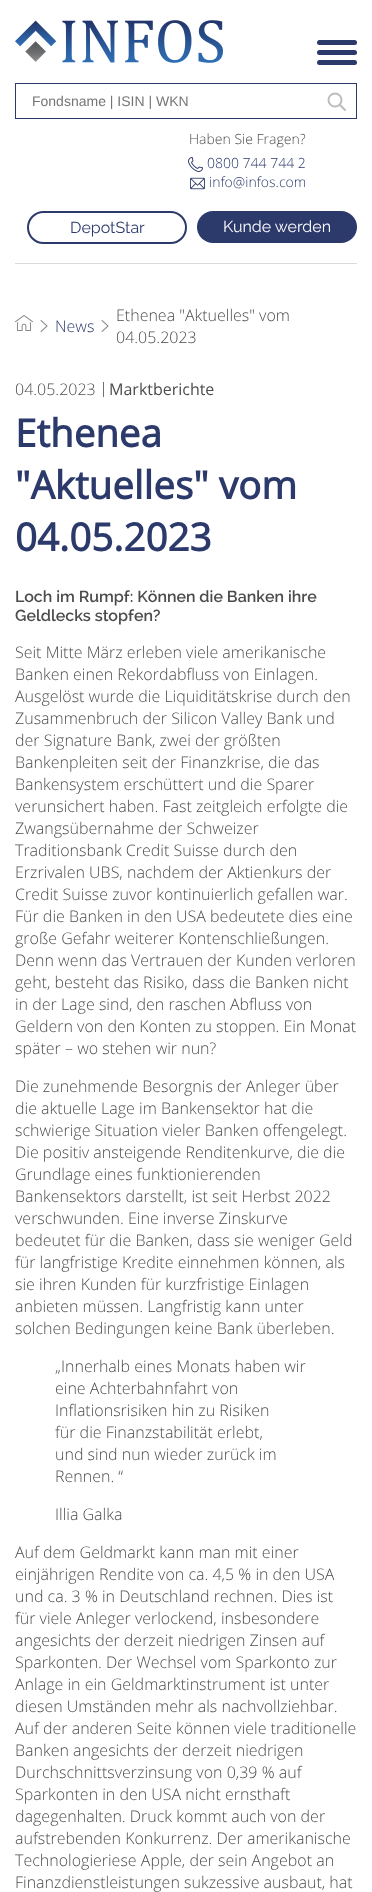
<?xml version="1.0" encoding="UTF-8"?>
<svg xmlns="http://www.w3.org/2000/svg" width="372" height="1892">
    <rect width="100%" height="100%" fill="#FFFFFF"/>
    <image x="15" y="20" width="208" height="43" href="img_01.png"/>
    <rect x="317" y="40" width="40" height="5" rx="2.5" fill="#2C3A6B"/>
    <rect x="317" y="50" width="40" height="5" rx="2.5" fill="#2C3A6B"/>
    <rect x="317" y="60" width="40" height="5" rx="2.5" fill="#2C3A6B"/>
    <circle cx="335" cy="100" r="6.5" fill="none" stroke="#BDBDBD" stroke-width="2"/>
    <path d="M 340 105 L 345 110" fill="none" stroke="#BDBDBD" stroke-width="2" stroke-linecap="round"/>
    <rect x="15.5" y="83.5" width="341" height="35" fill="none" stroke="#2C3A6B"/>
    <text x="32" y="106" font-family="Liberation Sans" font-size="14" fill="#757575">Fondsname | ISIN | WKN</text>
    <text x="189" y="144" font-family="Open Sans" font-size="14" font-weight="300" fill="#4C4C4C">Haben Sie Fragen?</text>
    <image x="188" y="157" width="15" height="15" href="img_02.png"/>
    <text x="207" y="168" font-family="Open Sans" font-size="14" font-weight="300" fill="#2C3A6B">0800 744 744 2</text>
    <image x="190" y="177" width="15" height="13" href="img_03.png"/>
    <text x="209" y="187" font-family="Open Sans" font-size="14" font-weight="300" fill="#2C3A6B">info@infos.com</text>
    <rect x="28" y="212" width="158" height="31" rx="15.5" fill="none" stroke="#2C3A6B" stroke-width="2"/>
    <text x="70" y="233" font-family="Raleway" font-size="16" fill="#2C3A6B">DepotStar</text>
    <rect x="197" y="211" width="160" height="32" rx="16" fill="#2C3A6B"/>
    <text x="223" y="232" font-family="Raleway" font-size="16" fill="#FFFFFF">Kunde werden</text>
    <rect x="15" y="263" width="342" height="1" fill="#DCDADB"/>
    <image x="15" y="315" width="18" height="16" href="img_04.png"/>
    <image x="40" y="320" width="8" height="12" href="img_05.png"/>
    <text x="55" y="332" font-family="Open Sans" font-size="16" font-weight="300" fill="#2C3A6B">News</text>
    <image x="101" y="320" width="8" height="12" href="img_05.png"/>
    <text font-family="Open Sans" font-size="16" font-weight="300" fill="#4C4C4C">
        <tspan x="116" y="321">Ethenea "Aktuelles" vom</tspan>
        <tspan x="116" y="343">04.05.2023</tspan>
    </text>
    <text x="15" y="395" font-family="Open Sans" font-size="16" font-weight="300" fill="#4C4C4C">04.05.2023</text>
    <rect x="103" y="382" width="1" height="15" fill="#707070"/>
    <text x="109" y="395" font-family="Open Sans" font-size="16" fill="#4C4C4C">Marktberichte</text>
    <text font-family="Open Sans" font-size="38.5" font-weight="700" fill="#2C3A6B">
        <tspan x="15" y="447">Ethenea</tspan>
        <tspan x="15" y="499">"Aktuelles" vom</tspan>
        <tspan x="15" y="551">04.05.2023</tspan>
    </text>
    <text font-family="Raleway" font-size="16" font-weight="600" fill="#4C4C4C">
        <tspan x="15" y="602">Loch im Rumpf: Können die Banken ihre</tspan>
        <tspan x="15" y="621">Geldlecks stopfen?</tspan>
    </text>
    <text font-family="Open Sans" font-size="16" font-weight="300" fill="#4C4C4C">
        <tspan x="15" y="658">Seit Mitte März erleben viele amerikanische</tspan>
        <tspan x="15" y="680">Banken einen Rekordabfluss von Einlagen.</tspan>
        <tspan x="15" y="702">Ausgelöst wurde die Liquiditätskrise durch den</tspan>
        <tspan x="15" y="724">Zusammenbruch der Silicon Valley Bank und</tspan>
        <tspan x="15" y="746">der Signature Bank, zwei der größten</tspan>
        <tspan x="15" y="768">Bankenpleiten seit der Finanzkrise, die das</tspan>
        <tspan x="15" y="790">Bankensystem erschüttert und die Sparer</tspan>
        <tspan x="15" y="812">verunsichert haben. Fast zeitgleich erfolgte die</tspan>
        <tspan x="15" y="834">Zwangsübernahme der Schweizer</tspan>
        <tspan x="15" y="856">Traditionsbank Credit Suisse durch den</tspan>
        <tspan x="15" y="878">Erzrivalen UBS, nachdem der Aktienkurs der</tspan>
        <tspan x="15" y="900">Credit Suisse zuvor kontinuierlich gefallen war.</tspan>
        <tspan x="15" y="922">Für die Banken in den USA bedeutete dies eine</tspan>
        <tspan x="15" y="944">große Gefahr weiterer Kontenschließungen.</tspan>
        <tspan x="15" y="966">Denn wenn das Vertrauen der Kunden verloren</tspan>
        <tspan x="15" y="988">geht, besteht das Risiko, dass die Banken nicht</tspan>
        <tspan x="15" y="1010">in der Lage sind, den raschen Abfluss von</tspan>
        <tspan x="15" y="1032">Geldern von den Konten zu stoppen. Ein Monat</tspan>
        <tspan x="15" y="1054">später – wo stehen wir nun?</tspan>
    </text>
    <text font-family="Open Sans" font-size="16" font-weight="300" fill="#4C4C4C">
        <tspan x="15" y="1092">Die zunehmende Besorgnis der Anleger über</tspan>
        <tspan x="15" y="1114">die aktuelle Lage im Bankensektor hat die</tspan>
        <tspan x="15" y="1136">schwierige Situation vieler Banken offengelegt.</tspan>
        <tspan x="15" y="1158">Die positiv ansteigende Renditenkurve, die die</tspan>
        <tspan x="15" y="1180">Grundlage eines funktionierenden</tspan>
        <tspan x="15" y="1202">Bankensektors darstellt, ist seit Herbst 2022</tspan>
        <tspan x="15" y="1224">verschwunden. Eine inverse Zinskurve</tspan>
        <tspan x="15" y="1246">bedeutet für die Banken, dass sie weniger Geld</tspan>
        <tspan x="15" y="1268">für langfristige Kredite einnehmen können, als</tspan>
        <tspan x="15" y="1290">sie ihren Kunden für kurzfristige Einlagen</tspan>
        <tspan x="15" y="1312">anbieten müssen. Langfristig kann unter</tspan>
        <tspan x="15" y="1334">solchen Bedingungen keine Bank überleben.</tspan>
    </text>
    <text font-family="Open Sans" font-size="16" font-weight="300" fill="#4C4C4C">
        <tspan x="55" y="1372">„Innerhalb eines Monats haben wir</tspan>
        <tspan x="55" y="1394">eine Achterbahnfahrt von</tspan>
        <tspan x="55" y="1416">Inflationsrisiken hin zu Risiken</tspan>
        <tspan x="55" y="1438">für die Finanzstabilität erlebt,</tspan>
        <tspan x="55" y="1460">und sind nun wieder zurück im</tspan>
        <tspan x="55" y="1482">Rennen. “</tspan>
    </text>
    <text x="55" y="1520" font-family="Open Sans" font-size="16" font-weight="300" fill="#4C4C4C">Illia Galka</text>
    <text font-family="Open Sans" font-size="16" font-weight="300" fill="#4C4C4C">
        <tspan x="15" y="1558">Auf dem Geldmarkt kann man mit einer</tspan>
        <tspan x="15" y="1580">einjährigen Rendite von ca. 4,5 % in den USA</tspan>
        <tspan x="15" y="1602">und ca. 3 % in Deutschland rechnen. Dies ist</tspan>
        <tspan x="15" y="1624">für viele Anleger verlockend, insbesondere</tspan>
        <tspan x="15" y="1646">angesichts der derzeit niedrigen Zinsen auf</tspan>
        <tspan x="15" y="1668">Sparkonten. Der Wechsel vom Sparkonto zur</tspan>
        <tspan x="15" y="1690">Anlage in ein Geldmarktinstrument ist unter</tspan>
        <tspan x="15" y="1712">diesen Umständen mehr als nachvollziehbar.</tspan>
        <tspan x="15" y="1734">Auf der anderen Seite können viele traditionelle</tspan>
        <tspan x="15" y="1756">Banken angesichts der derzeit niedrigen</tspan>
        <tspan x="15" y="1778">Durchschnittsverzinsung von 0,39 % auf</tspan>
        <tspan x="15" y="1800">Sparkonten in den USA nicht ernsthaft</tspan>
        <tspan x="15" y="1822">dagegenhalten. Druck kommt auch von der</tspan>
        <tspan x="15" y="1844">aufstrebenden Konkurrenz. Der amerikanische</tspan>
        <tspan x="15" y="1866">Technologieriese Apple, der sein Angebot an</tspan>
        <tspan x="15" y="1888">Finanzdienstleistungen sukzessive ausbaut, hat</tspan>
    </text>
</svg>
